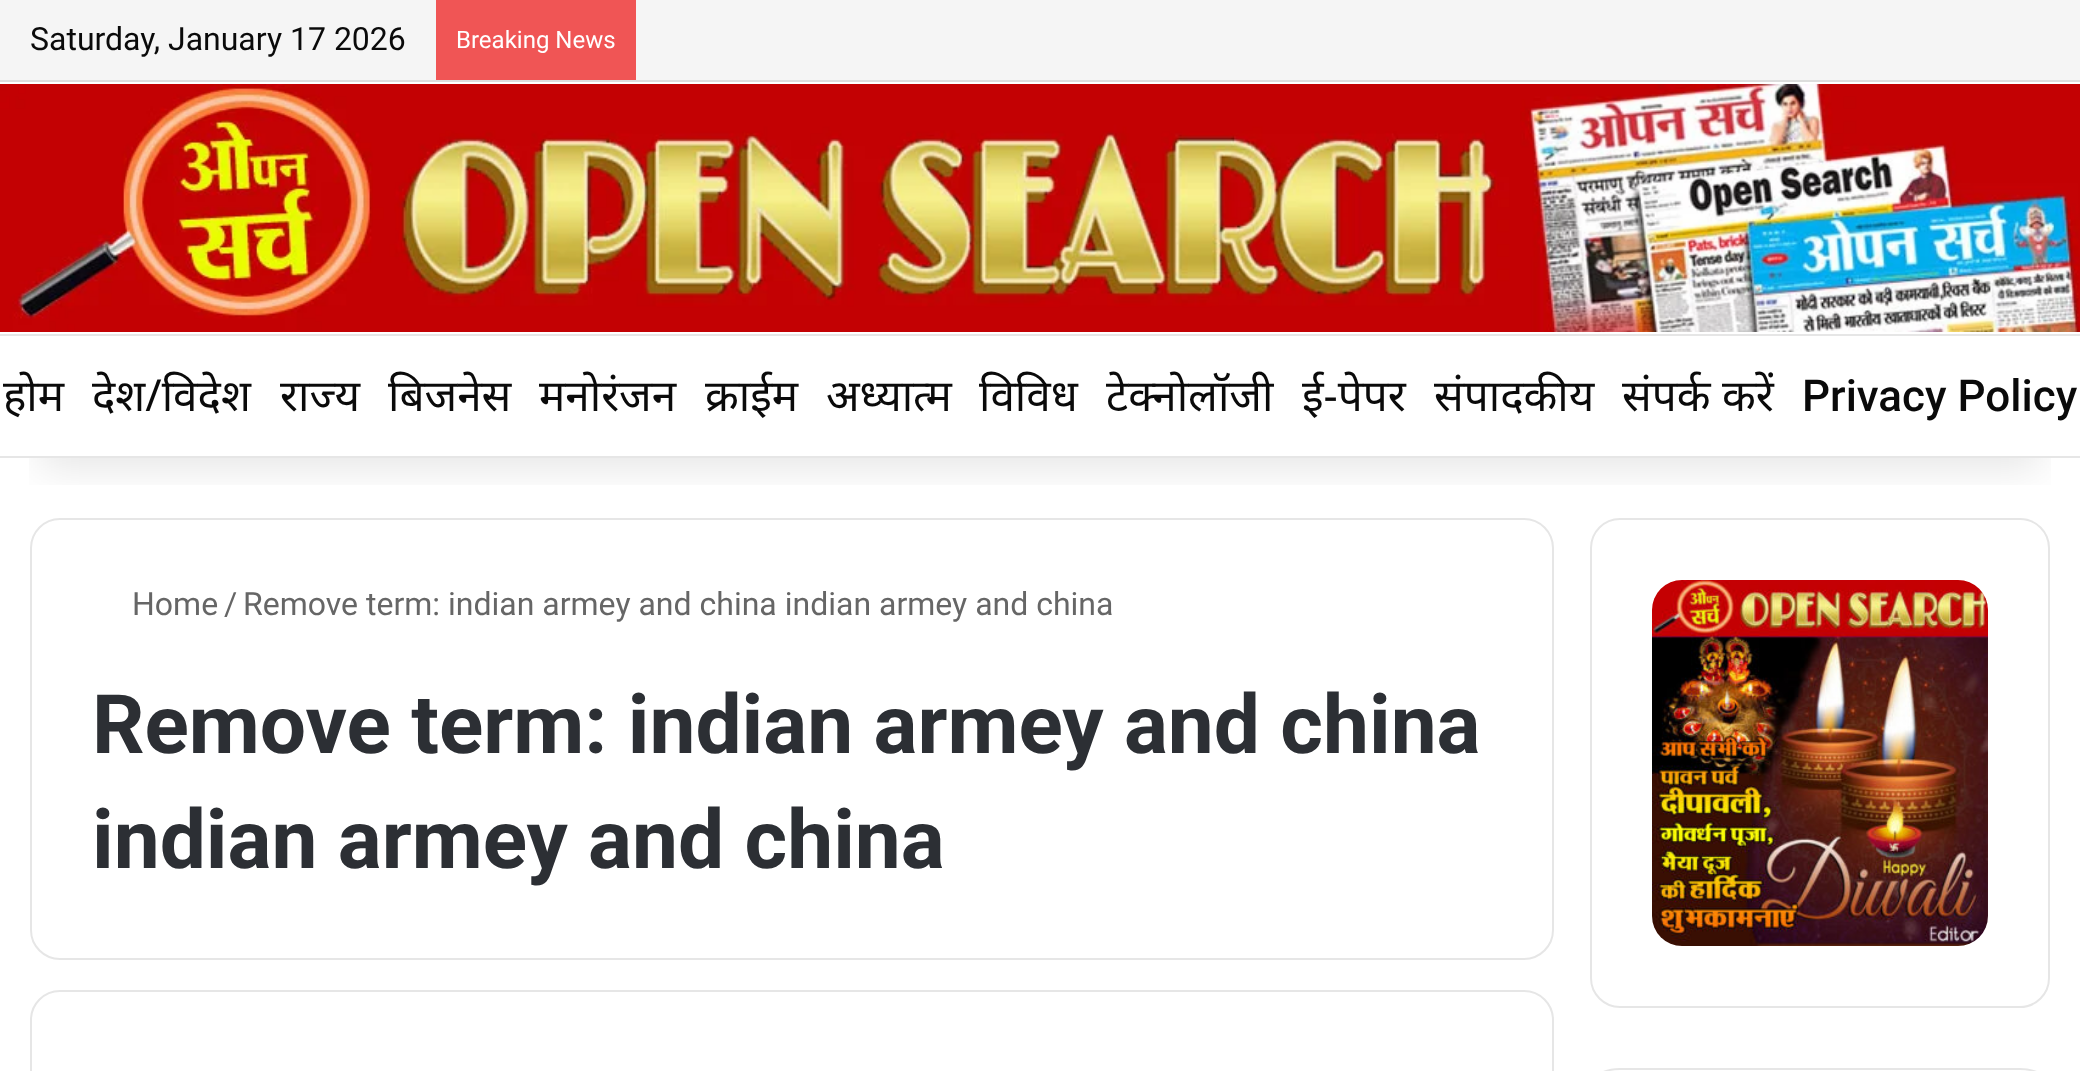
<?xml version="1.0" encoding="UTF-8"?>
<svg xmlns="http://www.w3.org/2000/svg" width="2080" height="1071">
    <defs>
        <clipPath id="clip1"><rect x="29" y="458" width="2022" height="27"/></clipPath>
        <filter id="blur1" x="-50%" y="-200%" width="200%" height="500%"><feGaussianBlur stdDeviation="20"/></filter>
    </defs>
    <rect width="100%" height="100%" fill="#FFFFFF"/>
    <rect x="31" y="519" width="1522" height="440" rx="29" fill="none" stroke="#E6E6E6" stroke-width="2"/>
    <rect x="1591" y="519" width="458" height="488" rx="29" fill="none" stroke="#E6E6E6" stroke-width="2"/>
    <g clip-path="url(#clip1)">
        <rect x="40" y="90" width="2000" height="378" fill="#000000" fill-opacity="0.1" filter="url(#blur1)"/>
    </g>
    <rect x="0" y="0" width="2080" height="80" fill="#F5F5F5"/>
    <rect x="0" y="80" width="2080" height="2" fill="#DDDDDD"/>
    <text x="30" y="50" font-family="Roboto" font-size="32" fill="#0A0A0A">Saturday, January 17 2026</text>
    <rect x="436" y="0" width="200" height="80" fill="#F05555"/>
    <text x="456" y="48" font-family="Roboto" font-size="24" fill="#FFFFFF">Breaking News</text>
    <image x="0" y="84" width="2080" height="248" href="img_01.png"/>
    <rect x="0" y="334" width="2080" height="2" fill="#E6E6E6"/>
    <rect x="0" y="456" width="2080" height="2" fill="#E6E6E6"/>
    <text x="3" y="411" font-family="Noto Sans" font-size="44" fill="#0A0A0A">होम</text>
    <text x="92" y="411" font-family="Noto Sans" font-size="44" fill="#0A0A0A">देश/विदेश</text>
    <text x="280" y="411" font-family="Noto Sans" font-size="44" fill="#0A0A0A">राज्य</text>
    <text x="388" y="411" font-family="Noto Sans" font-size="44" fill="#0A0A0A">बिजनेस</text>
    <text x="539" y="411" font-family="Noto Sans" font-size="44" fill="#0A0A0A">मनोरंजन</text>
    <text x="705" y="411" font-family="Noto Sans" font-size="44" fill="#0A0A0A">क्राईम</text>
    <text x="826" y="411" font-family="Noto Sans" font-size="44" fill="#0A0A0A">अध्यात्म</text>
    <text x="979" y="411" font-family="Noto Sans" font-size="44" fill="#0A0A0A">विविध</text>
    <text x="1106" y="411" font-family="Noto Sans" font-size="44" fill="#0A0A0A">टेक्नोलॉजी</text>
    <text x="1302" y="411" font-family="Noto Sans" font-size="44" fill="#0A0A0A">ई-पेपर</text>
    <text x="1434" y="411" font-family="Noto Sans" font-size="44" fill="#0A0A0A">संपादकीय</text>
    <text x="1622" y="411" font-family="Noto Sans" font-size="44" fill="#0A0A0A">संपर्क करें</text>
    <text x="1802" y="411" font-family="Roboto" font-size="44" font-weight="500" fill="#0A0A0A">Privacy Policy</text>
    <text x="132" y="615" font-family="Roboto" font-size="32" fill="#666666">Home</text>
    <text x="224" y="615" font-family="Roboto" font-size="32" fill="#666666">/</text>
    <text x="243" y="615" font-family="Roboto" font-size="32" fill="#666666">Remove term: indian armey and china indian armey and china</text>
    <text font-family="Roboto" font-size="82" font-weight="700" fill="#2C2F34">
        <tspan x="92" y="753">Remove term: indian armey and china</tspan>
        <tspan x="92" y="868">indian armey and china</tspan>
    </text>
    <rect x="31" y="991" width="1522" height="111" rx="29" fill="none" stroke="#E6E6E6" stroke-width="2"/>
    <image x="1652" y="580" width="336" height="366" href="img_02.png"/>
    <rect x="1591" y="1069" width="458" height="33" rx="29" fill="none" stroke="#E6E6E6" stroke-width="2"/>
</svg>
